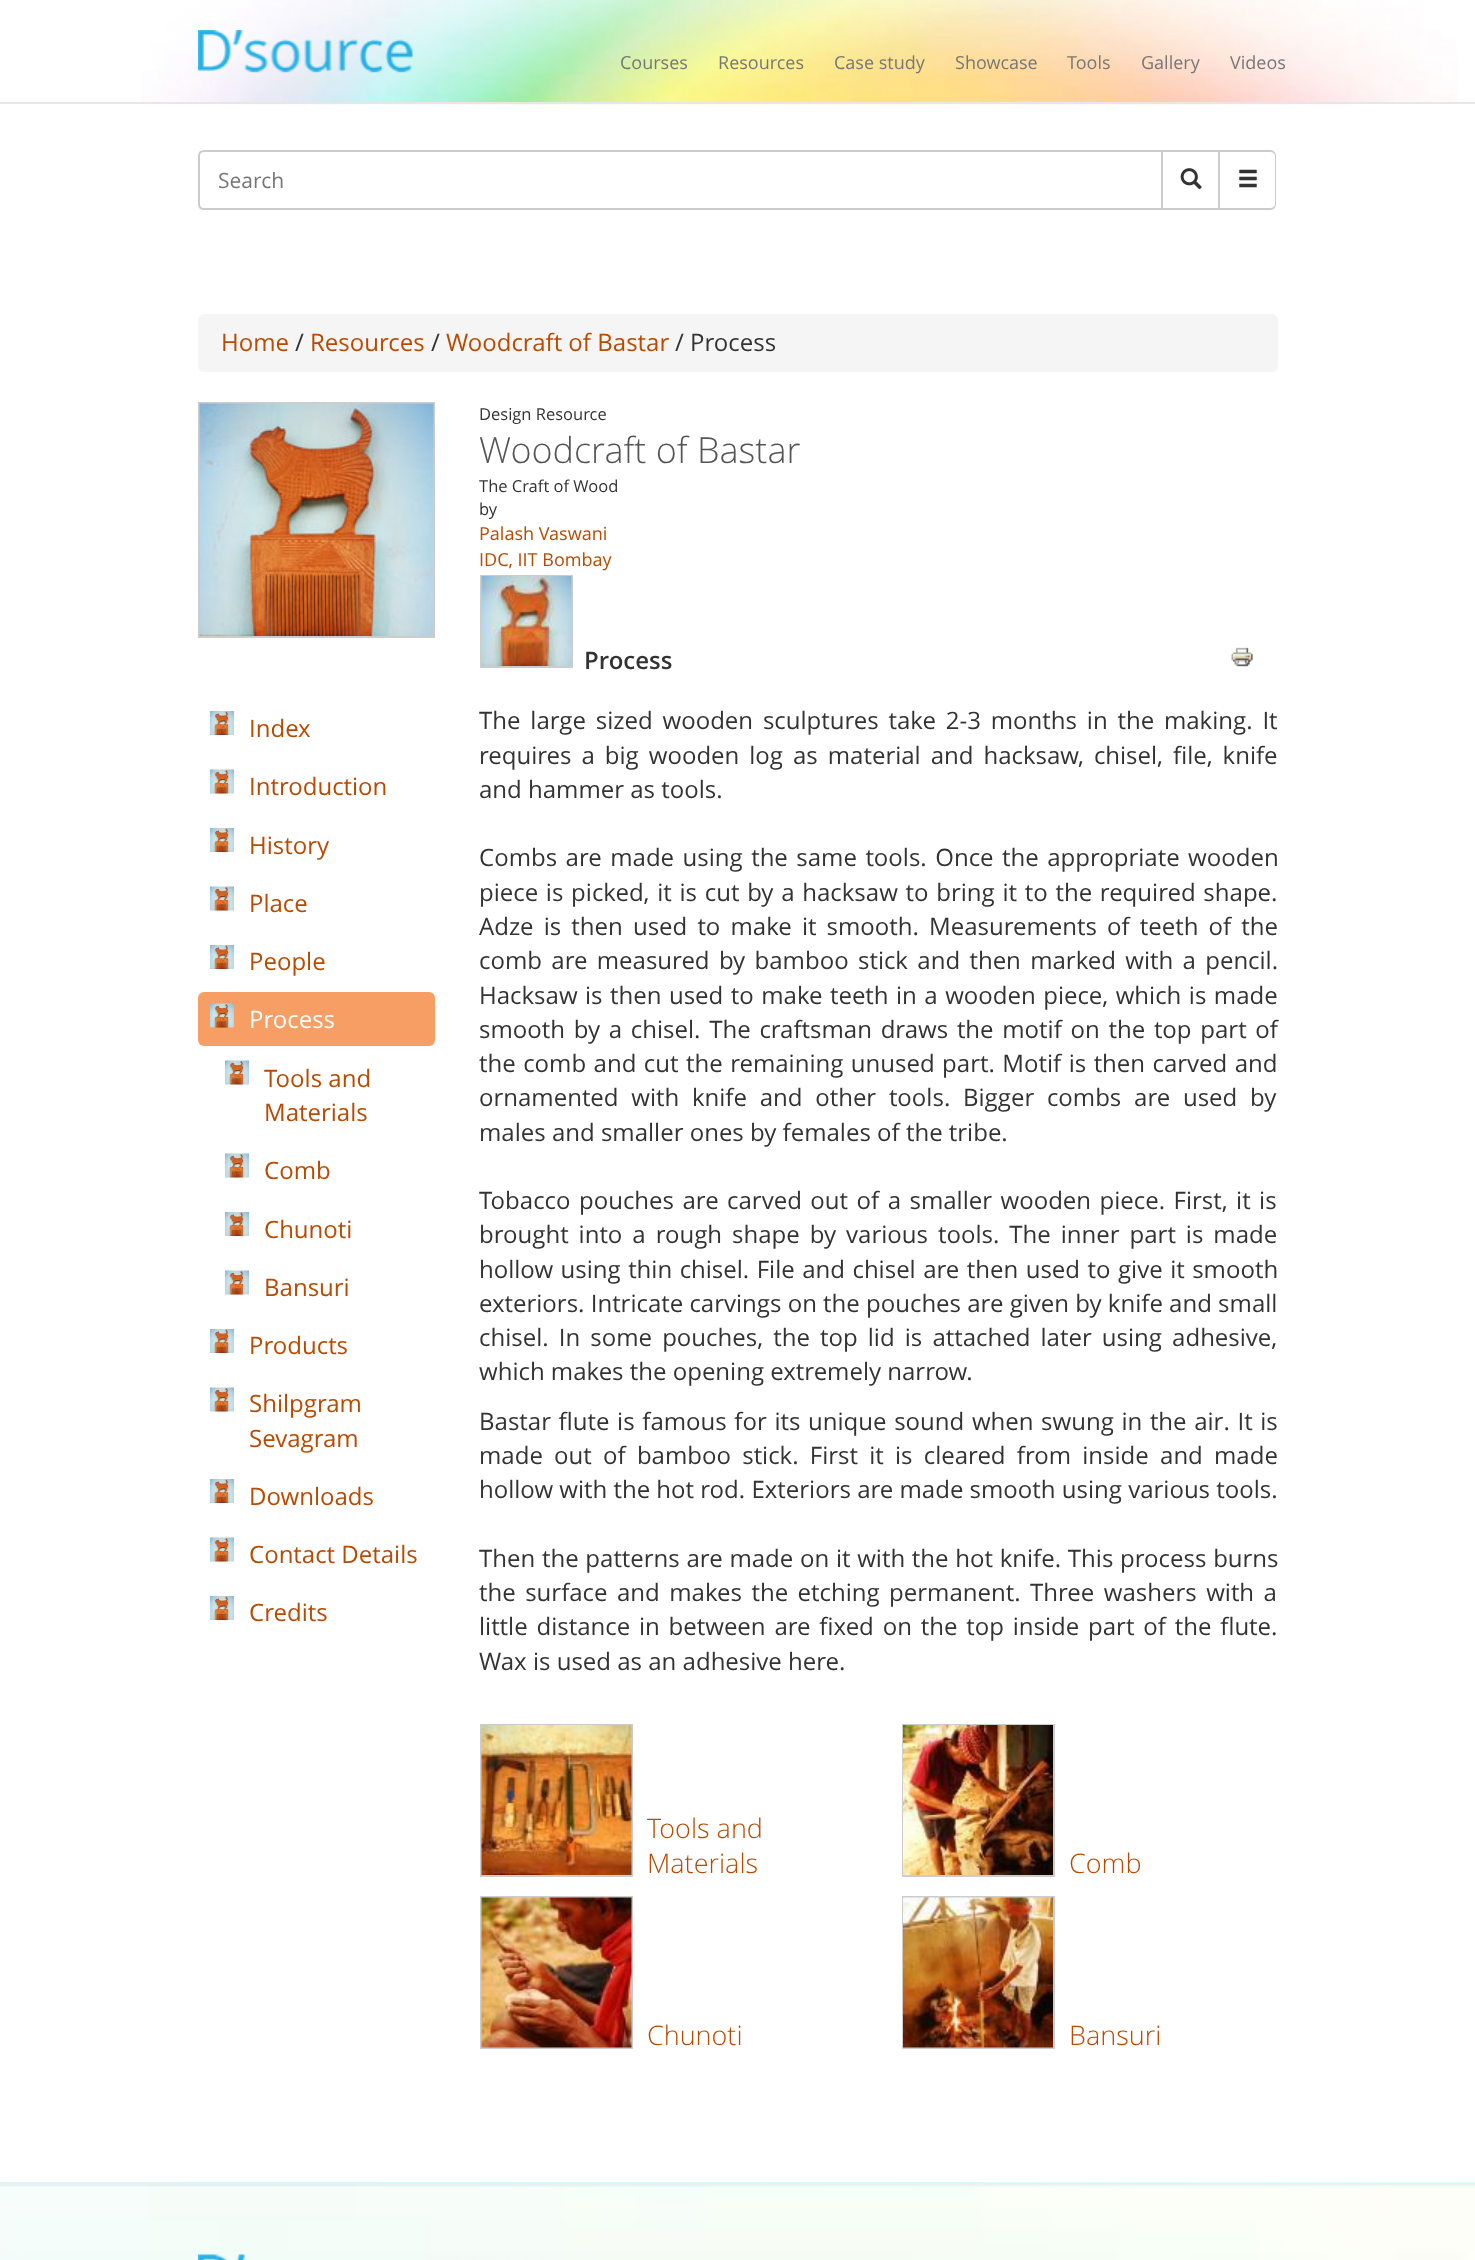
<?xml version="1.0" encoding="UTF-8"?>
<svg xmlns="http://www.w3.org/2000/svg" width="1475" height="2260">
    <rect width="100%" height="100%" fill="#FFFFFF"/>
    <image x="141" y="0" width="1318" height="105" href="img_01.png"/>
    <rect x="0" y="102" width="1475" height="2" fill="#E7E7E7"/>
    <image x="198" y="30" width="215" height="43" href="img_02.png"/>
    <text x="620" y="69" font-family="Open Sans" font-size="18" fill="#777777">Courses</text>
    <text x="718" y="69" font-family="Open Sans" font-size="18" fill="#777777">Resources</text>
    <text x="834" y="69" font-family="Open Sans" font-size="18" fill="#777777">Case study</text>
    <text x="955" y="69" font-family="Open Sans" font-size="18" fill="#777777">Showcase</text>
    <text x="1067" y="69" font-family="Open Sans" font-size="18" fill="#777777">Tools</text>
    <text x="1141" y="69" font-family="Open Sans" font-size="18" fill="#777777">Gallery</text>
    <text x="1230" y="69" font-family="Open Sans" font-size="18" fill="#777777">Videos</text>
    <rect x="1162" y="151" width="57" height="58" fill="none" stroke="#CCCCCC" stroke-width="2"/>
    <path d="M 204 151 H 1162 V 209 H 204 C 201 209 199 207 199 204 V 156 C 199 153 201 151 204 151 Z" fill="#FFFFFF" stroke="#CCCCCC" stroke-width="2"/>
    <text x="218" y="188" font-family="Open Sans" font-size="21" fill="#777777">Search</text>
    <image x="1180" y="168" width="22" height="22" href="img_03.png"/>
    <path d="M 1220 150 H 1270 C 1274 150 1276 153 1276 156 V 204 C 1276 207 1274 210 1270 210 H 1220 Z M 1220 152 H 1270 C 1273 152 1275 154 1275 156 V 204 C 1275 206 1273 208 1270 208 H 1220 Z" fill="#CCCCCC" fill-rule="evenodd"/>
    <image x="1239" y="169" width="18" height="19" href="img_04.png"/>
    <rect x="198" y="314" width="1080" height="58" rx="6" fill="#F5F5F5"/>
    <text x="221" y="351" font-family="Open Sans" font-size="24" fill="#B84A01">Home</text>
    <text x="295" y="351" font-family="Open Sans" font-size="24" fill="#333333">/</text>
    <text x="310" y="351" font-family="Open Sans" font-size="24" fill="#B84A01">Resources</text>
    <text x="431" y="351" font-family="Open Sans" font-size="24" fill="#333333">/</text>
    <text x="446" y="351" font-family="Open Sans" font-size="24" fill="#B84A01">Woodcraft of Bastar</text>
    <text x="675" y="351" font-family="Open Sans" font-size="24" fill="#333333">/ Process</text>
    <rect x="199" y="403" width="235" height="234" fill="none" stroke="#CCCCCC" stroke-width="2"/>
    <image x="199" y="403" width="235" height="233" href="img_05.png"/>
    <text x="479" y="420" font-family="Open Sans" font-size="16.5" fill="#333333">Design Resource</text>
    <text x="479" y="463" font-family="Open Sans" font-size="36" font-weight="300" fill="#555555">Woodcraft of Bastar</text>
    <text font-family="Open Sans" font-size="16.5" fill="#333333">
        <tspan x="479" y="492">The Craft of Wood</tspan>
        <tspan x="479" y="515">by</tspan>
    </text>
    <text font-family="Open Sans" font-size="18" fill="#B84A01">
        <tspan x="479" y="540">Palash Vaswani</tspan>
        <tspan x="479" y="566">IDC, IIT Bombay</tspan>
    </text>
    <rect x="481" y="576" width="91" height="91" fill="none" stroke="#CCCCCC" stroke-width="2"/>
    <image x="481" y="576" width="91" height="90" href="img_06.png"/>
    <text x="584" y="669" font-family="Open Sans" font-size="24" font-weight="600" fill="#333333">Process</text>
    <image x="210" y="711" width="24" height="24" href="img_07.png"/>
    <text x="249" y="737" font-family="Open Sans" font-size="24" fill="#B84A01">Index</text>
    <image x="210" y="769" width="24" height="25" href="img_08.png"/>
    <text x="249" y="795" font-family="Open Sans" font-size="24" fill="#B84A01">Introduction</text>
    <image x="210" y="828" width="24" height="24" href="img_09.png"/>
    <text x="249" y="854" font-family="Open Sans" font-size="24" fill="#B84A01">History</text>
    <image x="210" y="886" width="24" height="25" href="img_10.png"/>
    <text x="249" y="912" font-family="Open Sans" font-size="24" fill="#B84A01">Place</text>
    <image x="210" y="945" width="24" height="24" href="img_07.png"/>
    <text x="249" y="970" font-family="Open Sans" font-size="24" fill="#B84A01">People</text>
    <rect x="198" y="992" width="237" height="54" rx="6" fill="#F69E64"/>
    <image x="210" y="1003" width="24" height="25" href="img_11.png"/>
    <text x="249" y="1028" font-family="Open Sans" font-size="24" fill="#FFFFFF">Process</text>
    <image x="225" y="1060" width="24" height="25" href="img_12.png"/>
    <text font-family="Open Sans" font-size="24" fill="#B84A01">
        <tspan x="264" y="1087">Tools and</tspan>
        <tspan x="264" y="1121">Materials</tspan>
    </text>
    <image x="225" y="1153" width="24" height="25" href="img_12.png"/>
    <text x="264" y="1179" font-family="Open Sans" font-size="24" fill="#B84A01">Comb</text>
    <image x="225" y="1212" width="24" height="24" href="img_07.png"/>
    <text x="264" y="1238" font-family="Open Sans" font-size="24" fill="#B84A01">Chunoti</text>
    <image x="225" y="1270" width="24" height="25" href="img_12.png"/>
    <text x="264" y="1296" font-family="Open Sans" font-size="24" fill="#B84A01">Bansuri</text>
    <image x="210" y="1329" width="24" height="24" href="img_07.png"/>
    <text x="249" y="1354" font-family="Open Sans" font-size="24" fill="#B84A01">Products</text>
    <image x="210" y="1387" width="24" height="25" href="img_12.png"/>
    <text font-family="Open Sans" font-size="24" fill="#B84A01">
        <tspan x="249" y="1412">Shilpgram</tspan>
        <tspan x="249" y="1447">Sevagram</tspan>
    </text>
    <image x="210" y="1479" width="24" height="24" href="img_07.png"/>
    <text x="249" y="1505" font-family="Open Sans" font-size="24" fill="#B84A01">Downloads</text>
    <image x="210" y="1537" width="24" height="25" href="img_13.png"/>
    <text x="249" y="1563" font-family="Open Sans" font-size="24" fill="#B84A01">Contact Details</text>
    <image x="210" y="1596" width="24" height="24" href="img_07.png"/>
    <text x="249" y="1621" font-family="Open Sans" font-size="24" fill="#B84A01">Credits</text>
    <image x="1231" y="647" width="22" height="20" href="img_14.png"/>
    <text font-family="Open Sans" font-size="24" fill="#333333">
        <tspan x="479" y="729" word-spacing="3.6">The large sized wooden sculptures take 2-3 months in the making. It</tspan>
        <tspan x="479" y="764" word-spacing="3.75">requires a big wooden log as material and hacksaw, chisel, file, knife</tspan>
        <tspan x="479" y="798">and hammer as tools.</tspan>
    </text>
    <text font-family="Open Sans" font-size="24" fill="#333333">
        <tspan x="479" y="866" word-spacing="2.25">Combs are made using the same tools. Once the appropriate wooden</tspan>
        <tspan x="479" y="901" word-spacing="1.5">piece is picked, it is cut by a hacksaw to bring it to the required shape.</tspan>
        <tspan x="479" y="935" word-spacing="3.9">Adze is then used to make it smooth. Measurements of teeth of the</tspan>
        <tspan x="479" y="969" word-spacing="3.1">comb are measured by bamboo stick and then marked with a pencil.</tspan>
        <tspan x="479" y="1004" word-spacing="1.25">Hacksaw is then used to make teeth in a wooden piece, which is made</tspan>
        <tspan x="479" y="1038" word-spacing="2.5">smooth by a chisel. The craftsman draws the motif on the top part of</tspan>
        <tspan x="479" y="1072" word-spacing="1.25">the comb and cut the remaining unused part. Motif is then carved and</tspan>
        <tspan x="479" y="1106" word-spacing="6.5">ornamented with knife and other tools. Bigger combs are used by</tspan>
        <tspan x="479" y="1141">males and smaller ones by females of the tribe.</tspan>
    </text>
    <text font-family="Open Sans" font-size="24" fill="#333333">
        <tspan x="479" y="1209" word-spacing="2.25">Tobacco pouches are carved out of a smaller wooden piece. First, it is</tspan>
        <tspan x="479" y="1243" word-spacing="3.75">brought into a rough shape by various tools. The inner part is made</tspan>
        <tspan x="479" y="1278" word-spacing="1.25">hollow using thin chisel. File and chisel are then used to give it smooth</tspan>
        <tspan x="479" y="1312">exteriors. Intricate carvings on the pouches are given by knife and small</tspan>
        <tspan x="479" y="1346" word-spacing="3.9">chisel. In some pouches, the top lid is attached later using adhesive,</tspan>
        <tspan x="479" y="1380">which makes the opening extremely narrow.</tspan>
    </text>
    <text font-family="Open Sans" font-size="24" fill="#333333">
        <tspan x="479" y="1430" word-spacing="1.4">Bastar flute is famous for its unique sound when swung in the air. It is</tspan>
        <tspan x="479" y="1464" word-spacing="5">made out of bamboo stick. First it is cleared from inside and made</tspan>
        <tspan x="479" y="1498">hollow with the hot rod. Exteriors are made smooth using various tools.</tspan>
    </text>
    <text font-family="Open Sans" font-size="24" fill="#333333">
        <tspan x="479" y="1567" word-spacing="0.5">Then the patterns are made on it with the hot knife. This process burns</tspan>
        <tspan x="479" y="1601" word-spacing="3.25">the surface and makes the etching permanent. Three washers with a</tspan>
        <tspan x="479" y="1635" word-spacing="2.6">little distance in between are fixed on the top inside part of the flute.</tspan>
        <tspan x="479" y="1670">Wax is used as an adhesive here.</tspan>
    </text>
    <rect x="481" y="1725" width="151" height="151" fill="none" stroke="#CCCCCC" stroke-width="2"/>
    <image x="481" y="1725" width="151" height="150" href="img_15.png"/>
    <text font-family="Open Sans" font-size="27" font-weight="300" fill="#B84A01">
        <tspan x="647" y="1838">Tools and</tspan>
        <tspan x="647" y="1873">Materials</tspan>
    </text>
    <rect x="903" y="1725" width="151" height="151" fill="none" stroke="#CCCCCC" stroke-width="2"/>
    <image x="903" y="1725" width="150" height="150" href="img_16.png"/>
    <text x="1069" y="1873" font-family="Open Sans" font-size="27" font-weight="300" fill="#B84A01">Comb</text>
    <rect x="481" y="1897" width="151" height="151" fill="none" stroke="#CCCCCC" stroke-width="2"/>
    <image x="481" y="1897" width="151" height="151" href="img_17.png"/>
    <text x="647" y="2045" font-family="Open Sans" font-size="27" font-weight="300" fill="#B84A01">Chunoti</text>
    <rect x="903" y="1897" width="151" height="151" fill="none" stroke="#CCCCCC" stroke-width="2"/>
    <image x="903" y="1897" width="150" height="151" href="img_18.png"/>
    <text x="1069" y="2045" font-family="Open Sans" font-size="27" font-weight="300" fill="#B84A01">Bansuri</text>
    <image x="0" y="2182" width="1475" height="78" href="img_19.png"/>
    <rect x="0" y="2183" width="1475" height="2" fill="#EEEEEE"/>
    <image x="198" y="2254" width="48" height="6" href="img_20.png"/>
</svg>
